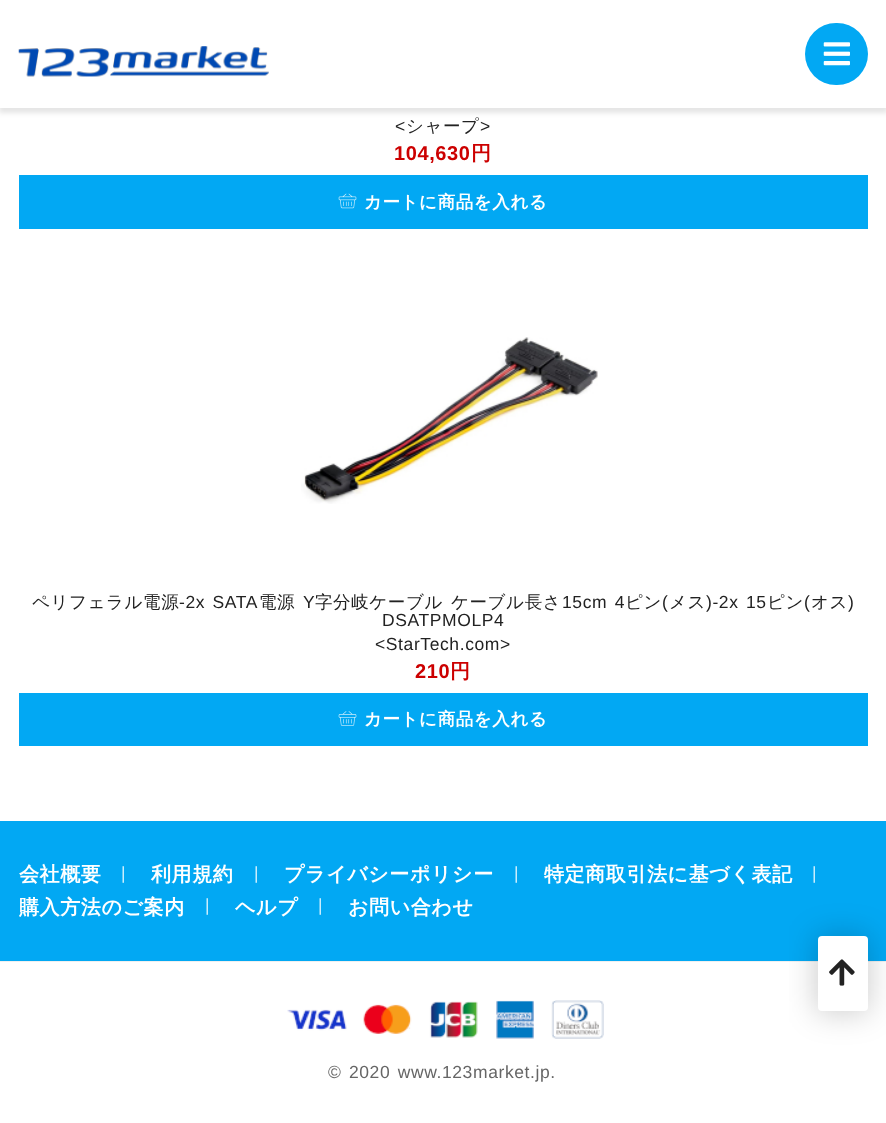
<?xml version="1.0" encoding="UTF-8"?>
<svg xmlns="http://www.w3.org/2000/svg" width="886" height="1123">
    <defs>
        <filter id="blur1" x="-50%" y="-200%" width="200%" height="500%"><feGaussianBlur stdDeviation="2.5"/></filter>
        <filter id="blur2" x="-50%" y="-200%" width="200%" height="500%"><feGaussianBlur stdDeviation="15.5"/></filter>
    </defs>
    <rect width="100%" height="100%" fill="#FFFFFF"/>
    <rect x="-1" y="3" width="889" height="110" fill="#000000" fill-opacity="0.1" filter="url(#blur1)"/>
    <rect x="0" y="0" width="886" height="108" fill="#FFFFFF"/>
    <image x="18" y="46" width="251" height="31" href="img_01.png"/>
    <rect x="805" y="23" width="63" height="62" rx="31" fill="#02A8F3"/>
    <image x="823" y="42" width="27" height="24" href="img_02.png"/>
    <text x="395" y="132" font-family="Liberation Sans" font-size="17.5" letter-spacing="0.6" fill="#222222">&lt;</text>
    <text x="406" y="132" font-family="WenQuanYi Zen Hei" font-size="17.5" font-weight="500" letter-spacing="0.6" fill="#222222">シャープ</text>
    <text x="480" y="132" font-family="Liberation Sans" font-size="17.5" letter-spacing="0.6" fill="#222222">&gt;</text>
    <text x="394" y="160" font-family="Liberation Sans" font-size="20" font-weight="700" letter-spacing="0.6" fill="#CC0000">104,630</text>
    <text x="471" y="160" font-family="WenQuanYi Zen Hei" font-size="20" font-weight="700" letter-spacing="0.6" fill="#CC0000">円</text>
    <rect x="19" y="175" width="849" height="54" fill="#02A8F3"/>
    <image x="338" y="193" width="19" height="16" href="img_03.png"/>
    <text x="364" y="208" font-family="WenQuanYi Zen Hei" font-size="17.5" font-weight="700" letter-spacing="0.6" fill="#FFFFFF">カートに商品を入れる</text>
    <image x="301" y="337" width="297" height="167" href="img_04.png"/>
    <text x="32" y="608" font-family="WenQuanYi Zen Hei" font-size="17.5" font-weight="500" letter-spacing="0.6" fill="#222222">ペリフェラル電源</text>
    <text x="179" y="608" word-spacing="2" font-family="Liberation Sans" font-size="17.5" letter-spacing="0.6" fill="#222222">-2x SATA</text>
    <text x="259" y="608" font-family="WenQuanYi Zen Hei" font-size="17.5" font-weight="500" letter-spacing="0.6" fill="#222222">電源</text>
    <text x="303" y="608" font-family="Liberation Sans" font-size="17.5" letter-spacing="0.6" fill="#222222">Y</text>
    <text x="315" y="608" font-family="WenQuanYi Zen Hei" font-size="17.5" font-weight="500" letter-spacing="0.6" fill="#222222">字分岐ケーブル</text>
    <text x="451" y="608" font-family="WenQuanYi Zen Hei" font-size="17.5" font-weight="500" letter-spacing="0.6" fill="#222222">ケーブル長さ</text>
    <text x="562" y="608" word-spacing="2" font-family="Liberation Sans" font-size="17.5" letter-spacing="0.6" fill="#222222">15cm 4</text>
    <text x="625" y="608" font-family="WenQuanYi Zen Hei" font-size="17.5" font-weight="500" letter-spacing="0.6" fill="#222222">ピン</text>
    <text x="662" y="608" font-family="Liberation Sans" font-size="17.5" letter-spacing="0.6" fill="#222222">(</text>
    <text x="669" y="608" font-family="WenQuanYi Zen Hei" font-size="17.5" font-weight="500" letter-spacing="0.6" fill="#222222">メス</text>
    <text x="706" y="608" word-spacing="2" font-family="Liberation Sans" font-size="17.5" letter-spacing="0.6" fill="#222222">)-2x 15</text>
    <text x="767" y="608" font-family="WenQuanYi Zen Hei" font-size="17.5" font-weight="500" letter-spacing="0.6" fill="#222222">ピン</text>
    <text x="804" y="608" font-family="Liberation Sans" font-size="17.5" letter-spacing="0.6" fill="#222222">(</text>
    <text x="811" y="608" font-family="WenQuanYi Zen Hei" font-size="17.5" font-weight="500" letter-spacing="0.6" fill="#222222">オス</text>
    <text x="848" y="608" font-family="Liberation Sans" font-size="17.5" letter-spacing="0.6" fill="#222222">)</text>
    <text x="382" y="626" font-family="Liberation Sans" font-size="17.5" letter-spacing="0.6" fill="#222222">DSATPMOLP4</text>
    <text x="375" y="650" font-family="Liberation Sans" font-size="17.5" letter-spacing="0.6" fill="#222222">&lt;StarTech.com&gt;</text>
    <text x="415" y="678" font-family="Liberation Sans" font-size="20" font-weight="700" letter-spacing="0.6" fill="#CC0000">210</text>
    <text x="450" y="678" font-family="WenQuanYi Zen Hei" font-size="20" font-weight="700" letter-spacing="0.6" fill="#CC0000">円</text>
    <rect x="19" y="693" width="849" height="53" fill="#02A8F3"/>
    <image x="338" y="711" width="19" height="15" href="img_05.png"/>
    <text x="364" y="725" font-family="WenQuanYi Zen Hei" font-size="17.5" font-weight="700" letter-spacing="0.6" fill="#FFFFFF">カートに商品を入れる</text>
    <rect x="0" y="821" width="886" height="140" fill="#02A8F3"/>
    <text x="19" y="881" font-family="WenQuanYi Zen Hei" font-size="20" font-weight="700" letter-spacing="0.6" fill="#FFFFFF">会社概要</text>
    <text x="121" y="879" font-family="Liberation Sans" font-size="17.5" letter-spacing="0.6" fill="#CCEEFD">|</text>
    <text x="151" y="881" font-family="WenQuanYi Zen Hei" font-size="20" font-weight="700" letter-spacing="0.6" fill="#FFFFFF">利用規約</text>
    <text x="254" y="879" font-family="Liberation Sans" font-size="17.5" letter-spacing="0.6" fill="#CCEEFD">|</text>
    <text x="284" y="881" font-family="WenQuanYi Zen Hei" font-size="20" font-weight="700" letter-spacing="0.6" fill="#FFFFFF">プライバシーポリシー</text>
    <text x="514" y="879" font-family="Liberation Sans" font-size="17.5" letter-spacing="0.6" fill="#CCEEFD">|</text>
    <text x="544" y="881" font-family="WenQuanYi Zen Hei" font-size="20" font-weight="700" letter-spacing="0.6" fill="#FFFFFF">特定商取引法に基づく表記</text>
    <text x="812" y="879" font-family="Liberation Sans" font-size="17.5" letter-spacing="0.6" fill="#CCEEFD">|</text>
    <text x="19" y="914" font-family="WenQuanYi Zen Hei" font-size="20" font-weight="700" letter-spacing="0.6" fill="#FFFFFF">購入方法のご案内</text>
    <text x="205" y="911" font-family="Liberation Sans" font-size="17.5" letter-spacing="0.6" fill="#CCEEFD">|</text>
    <text x="235" y="914" font-family="WenQuanYi Zen Hei" font-size="20" font-weight="700" letter-spacing="0.6" fill="#FFFFFF">ヘルプ</text>
    <text x="318" y="911" font-family="Liberation Sans" font-size="17.5" letter-spacing="0.6" fill="#CCEEFD">|</text>
    <text x="348" y="914" font-family="WenQuanYi Zen Hei" font-size="20" font-weight="700" letter-spacing="0.6" fill="#FFFFFF">お問い合わせ</text>
    <rect x="0" y="961" width="886" height="1" fill="#F0F0F0"/>
    <image x="287" y="1000" width="317" height="39" href="img_06.png"/>
    <text x="328" y="1078" word-spacing="2" font-family="Liberation Sans" font-size="17.5" letter-spacing="0.6" fill="#666666">© 2020 www.123market.jp.</text>
    <rect x="816" y="935" width="53" height="78" rx="5" fill="#000000" fill-opacity="0.2" filter="url(#blur2)"/>
    <rect x="818" y="936" width="50" height="75" rx="4" fill="#FFFFFF"/>
    <image x="829" y="959" width="26" height="27" href="img_07.png"/>
</svg>
